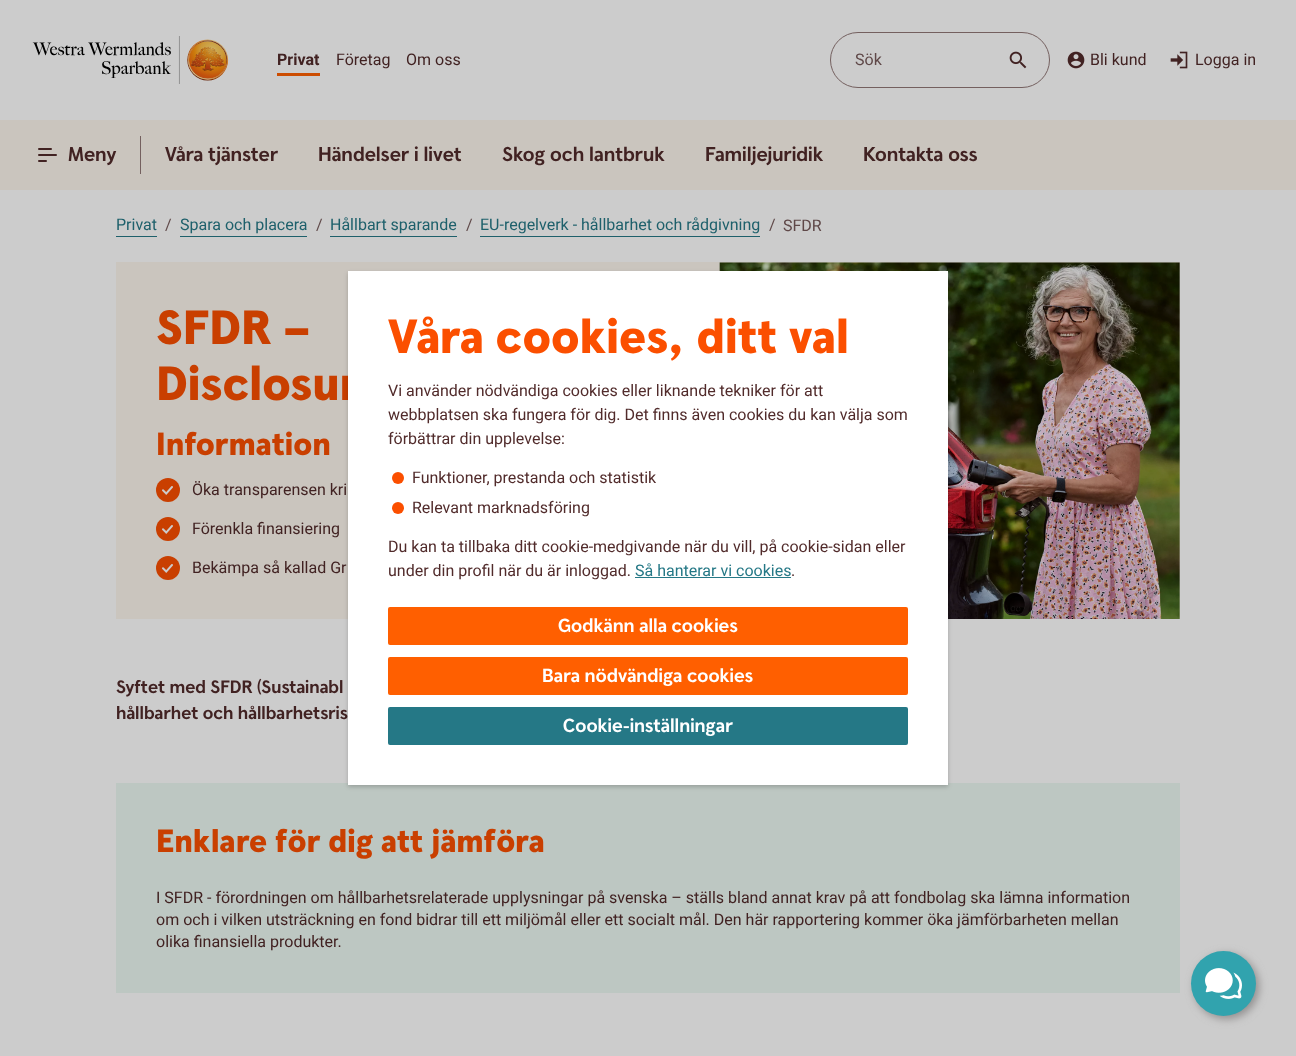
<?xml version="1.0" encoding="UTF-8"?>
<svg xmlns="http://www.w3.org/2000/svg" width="1296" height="1056">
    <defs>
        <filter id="blur1" x="-50%" y="-200%" width="200%" height="500%"><feGaussianBlur stdDeviation="2"/></filter>
        <filter id="blur2" x="-50%" y="-200%" width="200%" height="500%"><feGaussianBlur stdDeviation="4"/></filter>
    </defs>
    <rect width="100%" height="100%" fill="#CCCCCC"/>
    <image x="32" y="36" width="197" height="48" href="img_01.png"/>
    <rect x="277" y="73" width="43" height="3" fill="#CC4C00"/>
    <text x="277" y="65" font-family="Roboto" font-size="16" font-weight="700" fill="#412222">Privat</text>
    <text x="336" y="65" font-family="Roboto" font-size="16" fill="#412222">Företag</text>
    <text x="406" y="65" font-family="Roboto" font-size="16" fill="#412222">Om oss</text>
    <rect x="830.5" y="32.5" width="219" height="55" rx="27.5" fill="none" stroke="#74605F"/>
    <text x="855" y="65" font-family="Roboto" font-size="16" fill="#5F4848">Sök</text>
    <image x="1009" y="51" width="18" height="18" href="img_02.png"/>
    <image x="1067" y="51" width="18" height="18" href="img_03.png"/>
    <text x="1090" y="65" font-family="Roboto" font-size="16" fill="#412222">Bli kund</text>
    <image x="1170" y="51" width="18" height="18" href="img_04.png"/>
    <text x="1195" y="65" font-family="Roboto" font-size="16" fill="#412222">Logga in</text>
    <rect x="0" y="120" width="1296" height="70" fill="#CAC5BE"/>
    <rect x="38" y="148" width="14" height="2" rx="1" fill="#412222"/>
    <rect x="38" y="154" width="19" height="2" rx="1" fill="#412222"/>
    <rect x="38" y="160" width="9" height="2" rx="1" fill="#412222"/>
    <text x="68" y="161" font-family="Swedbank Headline" font-size="20" font-weight="700" fill="#412222">Meny</text>
    <rect x="140" y="136" width="1" height="38" fill="#74605F"/>
    <text x="165" y="161" font-family="Swedbank Headline" font-size="20" font-weight="700" fill="#412222">Våra tjänster</text>
    <text x="318" y="161" font-family="Swedbank Headline" font-size="20" font-weight="700" fill="#412222">Händelser i livet</text>
    <text x="502" y="161" font-family="Swedbank Headline" font-size="20" font-weight="700" fill="#412222">Skog och lantbruk</text>
    <text x="705" y="161" font-family="Swedbank Headline" font-size="20" font-weight="700" fill="#412222">Familjejuridik</text>
    <text x="863" y="161" font-family="Swedbank Headline" font-size="20" font-weight="700" fill="#412222">Kontakta oss</text>
    <text x="116" y="230" font-family="Roboto" font-size="16" fill="#1E606B">Privat</text>
    <rect x="116" y="236" width="41" height="1" fill="#1E606B"/>
    <text x="165" y="230" font-family="Roboto" font-size="16" fill="#5F4848">/</text>
    <text x="180" y="230" font-family="Roboto" font-size="16" fill="#1E606B">Spara och placera</text>
    <rect x="180" y="236" width="127" height="1" fill="#1E606B"/>
    <text x="316" y="230" font-family="Roboto" font-size="16" fill="#5F4848">/</text>
    <text x="330" y="230" font-family="Roboto" font-size="16" fill="#1E606B">Hållbart sparande</text>
    <rect x="330" y="236" width="127" height="1" fill="#1E606B"/>
    <text x="466" y="230" font-family="Roboto" font-size="16" fill="#5F4848">/</text>
    <text x="480" y="230" font-family="Roboto" font-size="16" fill="#1E606B">EU-regelverk - hållbarhet och rådgivning</text>
    <rect x="480" y="236" width="280" height="1" fill="#1E606B"/>
    <text x="769" y="230" font-family="Roboto" font-size="16" fill="#5F4848">/</text>
    <text x="783" y="231" font-family="Roboto" font-size="16" fill="#5F4848">SFDR</text>
    <rect x="116" y="262" width="1064" height="357" fill="#CAC5BE"/>
    <text font-family="Swedbank Headline" font-size="48" font-weight="900" fill="#C93F00">
        <tspan x="156" y="344">SFDR –</tspan>
        <tspan x="156" y="400">Disclosur</tspan>
    </text>
    <text x="156" y="455" font-family="Swedbank Headline" font-size="32" font-weight="900" fill="#C93F00">Information</text>
    <circle cx="168" cy="490" r="12" fill="#C93F00"/>
    <text x="192" y="495" font-family="Roboto" font-size="16" fill="#412222">Öka transparensen kri</text>
    <image x="162" y="486" width="11" height="9" href="img_05.png"/>
    <circle cx="168" cy="529" r="12" fill="#C93F00"/>
    <text x="192" y="534" font-family="Roboto" font-size="16" fill="#412222">Förenkla finansiering</text>
    <image x="162" y="525" width="11" height="9" href="img_05.png"/>
    <circle cx="168" cy="568" r="12" fill="#C93F00"/>
    <text x="192" y="573" font-family="Roboto" font-size="16" fill="#412222">Bekämpa så kallad Gr</text>
    <image x="162" y="564" width="11" height="9" href="img_05.png"/>
    <image x="719" y="262" width="461" height="357" href="img_06.png"/>
    <text font-family="Swedbank Headline" font-size="18" font-weight="700" fill="#412222">
        <tspan x="116" y="693">Syftet med SFDR (Sustainabl</tspan>
        <tspan x="116" y="719">hållbarhet och hållbarhetsris</tspan>
    </text>
    <rect x="116" y="783" width="1064" height="210" fill="#BDC7C2"/>
    <text x="156" y="852" font-family="Swedbank Headline" font-size="32" font-weight="900" fill="#C93F00">Enklare för dig att jämföra</text>
    <text font-family="Roboto" font-size="16" fill="#412222">
        <tspan x="156" y="903">I SFDR - förordningen om hållbarhetsrelaterade upplysningar på svenska – ställs bland annat krav på att fondbolag ska lämna information</tspan>
        <tspan x="156" y="925">om och i vilken utsträckning en fond bidrar till ett miljömål eller ett socialt mål. Den här rapportering kommer öka jämförbarheten mellan</tspan>
        <tspan x="156" y="947">olika finansiella produkter.</tspan>
    </text>
    <rect x="348" y="273" width="600" height="514" fill="#000000" fill-opacity="0.2" filter="url(#blur1)"/>
    <rect x="348" y="271" width="600" height="514" fill="#FFFFFF"/>
    <text x="388" y="353" font-family="Swedbank Headline" font-size="48" font-weight="900" fill="#FB4F00">Våra cookies, ditt val</text>
    <text font-family="Roboto" font-size="16" fill="#512B2B">
        <tspan x="388" y="396">Vi använder nödvändiga cookies eller liknande tekniker för att</tspan>
        <tspan x="388" y="420">webbplatsen ska fungera för dig. Det finns även cookies du kan välja som</tspan>
        <tspan x="388" y="444">förbättrar din upplevelse:</tspan>
    </text>
    <circle cx="398" cy="478" r="6" fill="#FB4F00"/>
    <text x="412" y="483" font-family="Roboto" font-size="16" fill="#512B2B">Funktioner, prestanda och statistik</text>
    <circle cx="398" cy="508" r="6" fill="#FB4F00"/>
    <text x="412" y="513" font-family="Roboto" font-size="16" fill="#512B2B">Relevant marknadsföring</text>
    <text font-family="Roboto" font-size="16" fill="#512B2B">
        <tspan x="388" y="552">Du kan ta tillbaka ditt cookie-medgivande när du vill, på cookie-sidan eller</tspan>
        <tspan x="388" y="576">under din profil när du är inloggad.</tspan>
    </text>
    <text x="635" y="576" font-family="Roboto" font-size="16" fill="#257886">Så hanterar vi cookies</text>
    <rect x="635" y="577" width="156" height="1" fill="#257886"/>
    <text x="791" y="576" font-family="Roboto" font-size="16" fill="#512B2B">.</text>
    <rect x="388" y="607" width="520" height="38" rx="2" fill="#FF5F00"/>
    <text x="558" y="632" font-family="Swedbank Headline" font-size="19" font-weight="700" fill="#FFFFFF">Godkänn alla cookies</text>
    <rect x="388" y="657" width="520" height="38" rx="2" fill="#FF5F00"/>
    <text x="542" y="682" font-family="Swedbank Headline" font-size="19" font-weight="700" fill="#FFFFFF">Bara nödvändiga cookies</text>
    <rect x="388" y="707" width="520" height="38" rx="2" fill="#257886"/>
    <text x="563" y="732" font-family="Swedbank Headline" font-size="19" font-weight="700" fill="#FFFFFF">Cookie-inställningar</text>
    <rect x="1194" y="954" width="65" height="65" rx="32.5" fill="#908E8E" filter="url(#blur2)"/>
    <circle cx="1223.5" cy="983.5" r="32.5" fill="#31A3AE"/>
    <image x="1205" y="968" width="37" height="31" href="img_07.png"/>
</svg>
